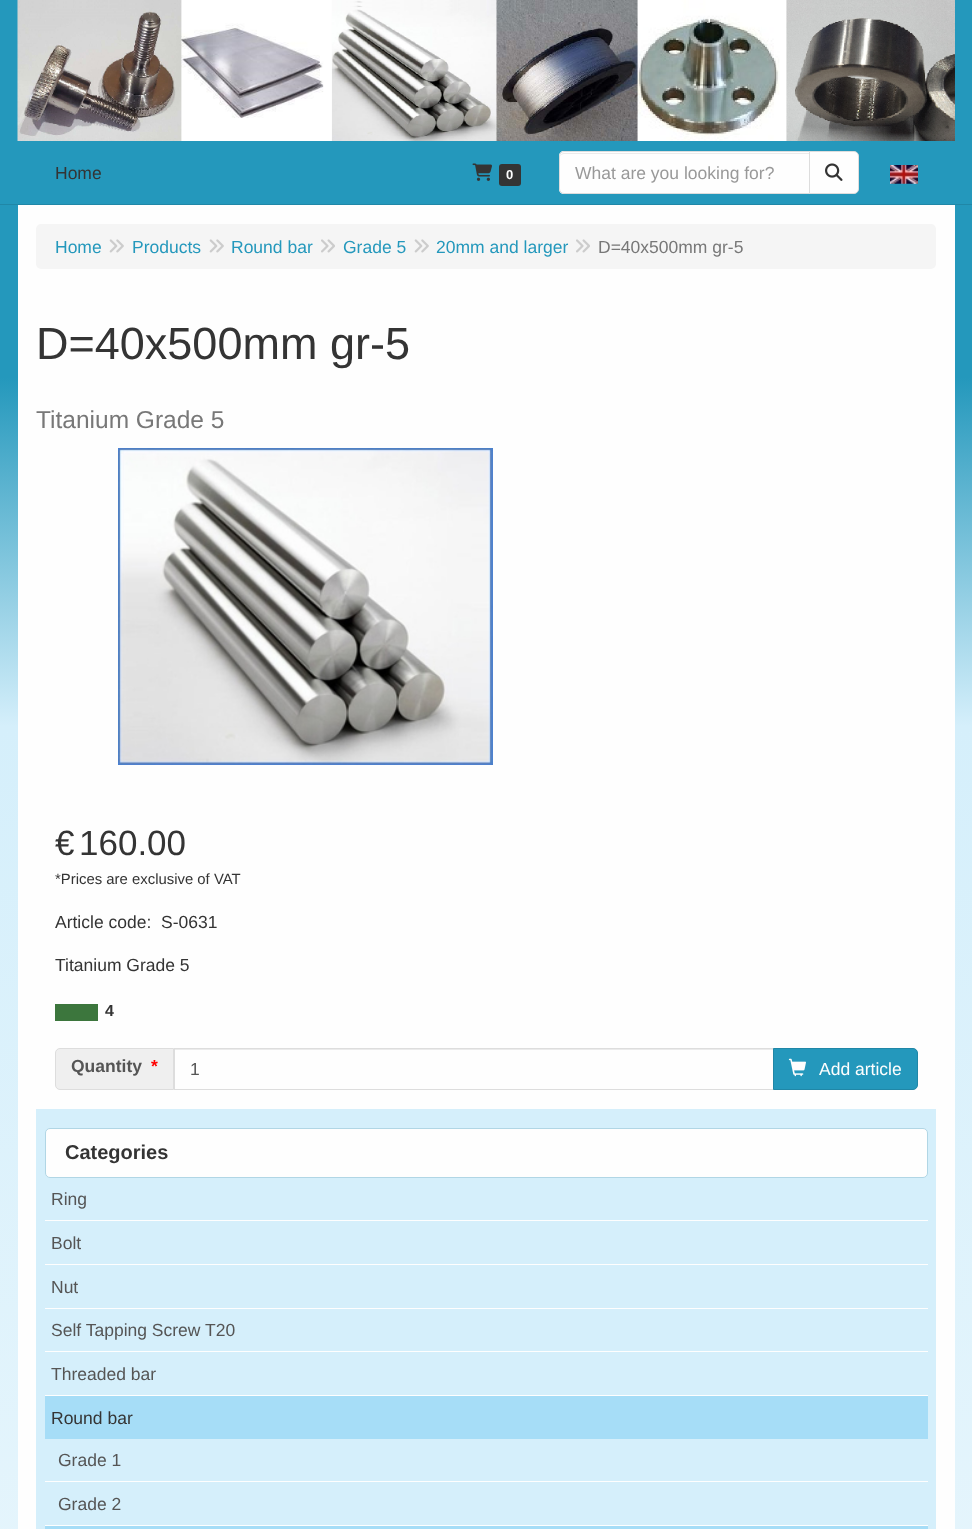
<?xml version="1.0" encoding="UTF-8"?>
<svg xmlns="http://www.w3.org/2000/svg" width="972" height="1529">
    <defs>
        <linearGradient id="g1" gradientUnits="userSpaceOnUse" x1="486" y1="0" x2="486" y2="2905"><stop offset="0.13" stop-color="#2498BC"/><stop offset="0.25" stop-color="#D5EFFB"/><stop offset="1" stop-color="#FEFEFE"/></linearGradient>
    </defs>
    <rect width="100%" height="100%" fill="#FFFFFF"/>
    <rect x="0" y="0" width="972" height="1529" fill="url(#g1)"/>
    <image x="17" y="0" width="938" height="141" href="img_01.png"/>
    <rect x="0" y="204" width="972" height="1" fill="#2087A7"/>
    <text x="55" y="179" font-family="Liberation Sans" font-size="17.5" fill="#343434">Home</text>
    <image x="472" y="163" width="20" height="18" href="img_02.png"/>
    <rect x="499" y="164" width="22" height="22" rx="3" fill="#343434"/>
    <text x="506" y="179" font-family="Liberation Sans" font-size="13" font-weight="700" fill="#FEFEFE">0</text>
    <path d="M 564 151 H 810 V 194 H 564 C 561 194 559 192 559 189 V 156 C 559 153 561 151 564 151 Z" fill="#FEFEFE"/>
    <path d="M 564 154 H 809 V 153 H 564 C 562 153 560 155 560 157 V 158 C 560 155 562 154 564 154 Z" fill="#EBEBEB"/>
    <path d="M 564 151.5 H 809.5 V 193.5 H 564 C 561.5 193.5 559.5 191.5 559.5 189 V 156 C 559.5 153.5 561.5 151.5 564 151.5 Z" fill="none" stroke="#DDDDDD"/>
    <text x="575" y="179" font-family="Liberation Sans" font-size="17.5" fill="#999999">What are you looking for?</text>
    <path d="M 809.5 151.5 H 854 C 856.5 151.5 858.5 153.5 858.5 156 V 189 C 858.5 191.5 856.5 193.5 854 193.5 H 809.5 Z" fill="#FEFEFE" stroke="#DDDDDD"/>
    <image x="825" y="163" width="18" height="18" href="img_03.png"/>
    <image x="890" y="165" width="28" height="19" href="img_04.png"/>
    <rect x="18" y="205" width="937" height="1324" fill="#FEFEFE"/>
    <rect x="36" y="224" width="900" height="45" rx="5" fill="#F5F5F5"/>
    <text x="55" y="253" font-family="Liberation Sans" font-size="17.5" fill="#2498BC">Home</text>
    <image x="109" y="239" width="15" height="14" href="img_05.png"/>
    <text x="132" y="253" font-family="Liberation Sans" font-size="17.5" fill="#2498BC">Products</text>
    <image x="209" y="239" width="15" height="14" href="img_05.png"/>
    <text x="231" y="253" font-family="Liberation Sans" font-size="17.5" fill="#2498BC">Round bar</text>
    <image x="321" y="239" width="14" height="14" href="img_06.png"/>
    <text x="343" y="253" font-family="Liberation Sans" font-size="17.5" fill="#2498BC">Grade 5</text>
    <image x="414" y="239" width="15" height="14" href="img_05.png"/>
    <text x="436" y="253" font-family="Liberation Sans" font-size="17.5" fill="#2498BC">20mm and larger</text>
    <image x="576" y="239" width="14" height="14" href="img_06.png"/>
    <text x="598" y="253" font-family="Liberation Sans" font-size="17.5" fill="#787878">D=40x500mm gr-5</text>
    <text x="36" y="359" font-family="Liberation Sans" font-size="45" fill="#343434">D=40x500mm gr-5</text>
    <text x="36" y="428" font-family="Liberation Sans" font-size="24.5" fill="#787878">Titanium Grade 5</text>
    <image x="118" y="448" width="375" height="317" href="img_07.png"/>
    <text x="55" y="855" font-family="Liberation Sans" font-size="35" fill="#343434">€</text>
    <text x="79" y="855" font-family="Liberation Sans" font-size="35" fill="#343434">160.00</text>
    <text x="55" y="884" font-family="Liberation Sans" font-size="14.9" fill="#343434">*Prices are exclusive of VAT</text>
    <text x="55" y="928" font-family="Liberation Sans" font-size="17.5" fill="#343434">Article code:</text>
    <text x="161" y="928" font-family="Liberation Sans" font-size="17.5" fill="#343434">S-0631</text>
    <text x="55" y="971" font-family="Liberation Sans" font-size="17.5" fill="#343434">Titanium Grade 5</text>
    <rect x="55" y="1004" width="43" height="17" fill="#3C763D"/>
    <text x="105" y="1016" font-family="Liberation Sans" font-size="16" font-weight="700" fill="#343434">4</text>
    <path d="M 60 1048.5 H 173.5 V 1089.5 H 60 C 57.5 1089.5 55.5 1087.5 55.5 1085 V 1053 C 55.5 1050.5 57.5 1048.5 60 1048.5 Z" fill="#EFEFEF" stroke="#DDDDDD"/>
    <text x="71" y="1072" font-family="Liberation Sans" font-size="17.5" font-weight="700" fill="#555555">Quantity</text>
    <text x="151" y="1072" font-family="Liberation Sans" font-size="17.5" font-weight="700" fill="#FF0000">*</text>
    <rect x="175" y="1049" width="598" height="1" fill="#EBEBEB"/>
    <rect x="174.5" y="1048.5" width="599" height="41" fill="none" stroke="#DDDDDD"/>
    <text x="190" y="1075" font-family="Liberation Sans" font-size="17.5" fill="#555555">1</text>
    <path d="M 773.5 1048.5 H 913 C 915.5 1048.5 917.5 1050.5 917.5 1053 V 1085 C 917.5 1087.5 915.5 1089.5 913 1089.5 H 773.5 Z" fill="#2498BC" stroke="#2087A7"/>
    <image x="788" y="1058" width="18" height="19" href="img_08.png"/>
    <text x="819" y="1075" font-family="Liberation Sans" font-size="17.5" fill="#FEFEFE">Add article</text>
    <rect x="36" y="1109" width="900" height="420" fill="#D5EFFB"/>
    <rect x="45.5" y="1128.5" width="882" height="49" rx="4.5" fill="#FEFEFE" stroke="#B1D6E5"/>
    <text x="65" y="1159" font-family="Liberation Sans" font-size="20" font-weight="700" fill="#343434">Categories</text>
    <text x="51" y="1205" font-family="Liberation Sans" font-size="17.5" fill="#555555">Ring</text>
    <rect x="45" y="1220" width="883" height="1" fill="#FEFEFE"/>
    <text x="51" y="1249" font-family="Liberation Sans" font-size="17.5" fill="#555555">Bolt</text>
    <rect x="45" y="1264" width="883" height="1" fill="#FEFEFE"/>
    <text x="51" y="1293" font-family="Liberation Sans" font-size="17.5" fill="#555555">Nut</text>
    <rect x="45" y="1308" width="883" height="1" fill="#FEFEFE"/>
    <text x="51" y="1336" font-family="Liberation Sans" font-size="17.5" fill="#555555">Self Tapping Screw T20</text>
    <rect x="45" y="1351" width="883" height="1" fill="#FEFEFE"/>
    <text x="51" y="1380" font-family="Liberation Sans" font-size="17.5" fill="#555555">Threaded bar</text>
    <rect x="45" y="1396" width="883" height="43" fill="#A6DDF7"/>
    <rect x="45" y="1395" width="883" height="1" fill="#FEFEFE"/>
    <text x="51" y="1424" font-family="Liberation Sans" font-size="17.5" fill="#343434">Round bar</text>
    <text x="58" y="1466" font-family="Liberation Sans" font-size="17.5" fill="#555555">Grade 1</text>
    <rect x="45" y="1481" width="883" height="1" fill="#FEFEFE"/>
    <text x="58" y="1510" font-family="Liberation Sans" font-size="17.5" fill="#555555">Grade 2</text>
    <rect x="45" y="1526" width="883" height="3" fill="#A6DDF7"/>
    <rect x="45" y="1525" width="883" height="1" fill="#FEFEFE"/>
</svg>
